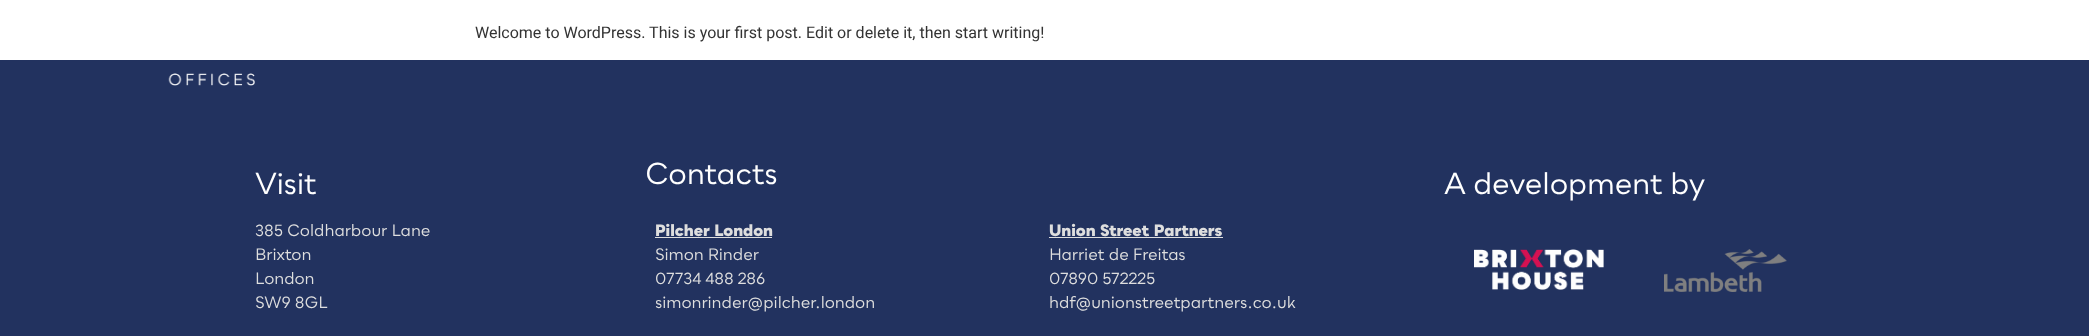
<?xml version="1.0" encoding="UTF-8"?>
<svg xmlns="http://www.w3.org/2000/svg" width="2089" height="336">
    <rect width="100%" height="100%" fill="#FFFFFF"/>
    <text x="475" y="38" font-family="Roboto" font-size="16" fill="#333333">Welcome to WordPress. This is your first post. Edit or delete it, then start writing!</text>
    <rect x="0" y="60" width="2089" height="276" fill="#22325F"/>
    <image x="168" y="73" width="87" height="13" href="img_01.png"/>
    <text x="255" y="194" font-family="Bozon" font-size="29.25" fill="#FFFFFF">Visit</text>
    <text font-family="Bozon" font-size="16" fill="#DEDEDE">
        <tspan x="255" y="236">385 Coldharbour Lane</tspan>
        <tspan x="255" y="260">Brixton</tspan>
        <tspan x="255" y="284">London</tspan>
        <tspan x="255" y="308">SW9 8GL</tspan>
    </text>
    <text x="645" y="184" font-family="Bozon" font-size="29.25" fill="#FFFFFF">Contacts</text>
    <text x="655" y="236" font-family="Bozon" font-size="16" font-weight="800" fill="#DEDEDE">Pilcher London</text>
    <rect x="655" y="237" width="117" height="1" fill="#DEDEDE"/>
    <text font-family="Bozon" font-size="16" fill="#DEDEDE">
        <tspan x="655" y="260">Simon Rinder</tspan>
        <tspan x="655" y="284">07734 488 286</tspan>
        <tspan x="655" y="308">simonrinder@pilcher.london</tspan>
    </text>
    <text x="1049" y="236" font-family="Bozon" font-size="16" font-weight="800" fill="#DEDEDE">Union Street Partners</text>
    <rect x="1049" y="237" width="174" height="1" fill="#DEDEDE"/>
    <text font-family="Bozon" font-size="16" fill="#DEDEDE">
        <tspan x="1049" y="260">Harriet de Freitas</tspan>
        <tspan x="1049" y="284">07890 572225</tspan>
        <tspan x="1049" y="308">hdf@unionstreetpartners.co.uk</tspan>
    </text>
    <text x="1444" y="194" font-family="Bozon" font-size="29.25" fill="#FFFFFF">A development by</text>
    <image x="1474" y="249" width="130" height="41" href="img_02.png"/>
    <image x="1664" y="249" width="123" height="43" href="img_03.png"/>
</svg>
